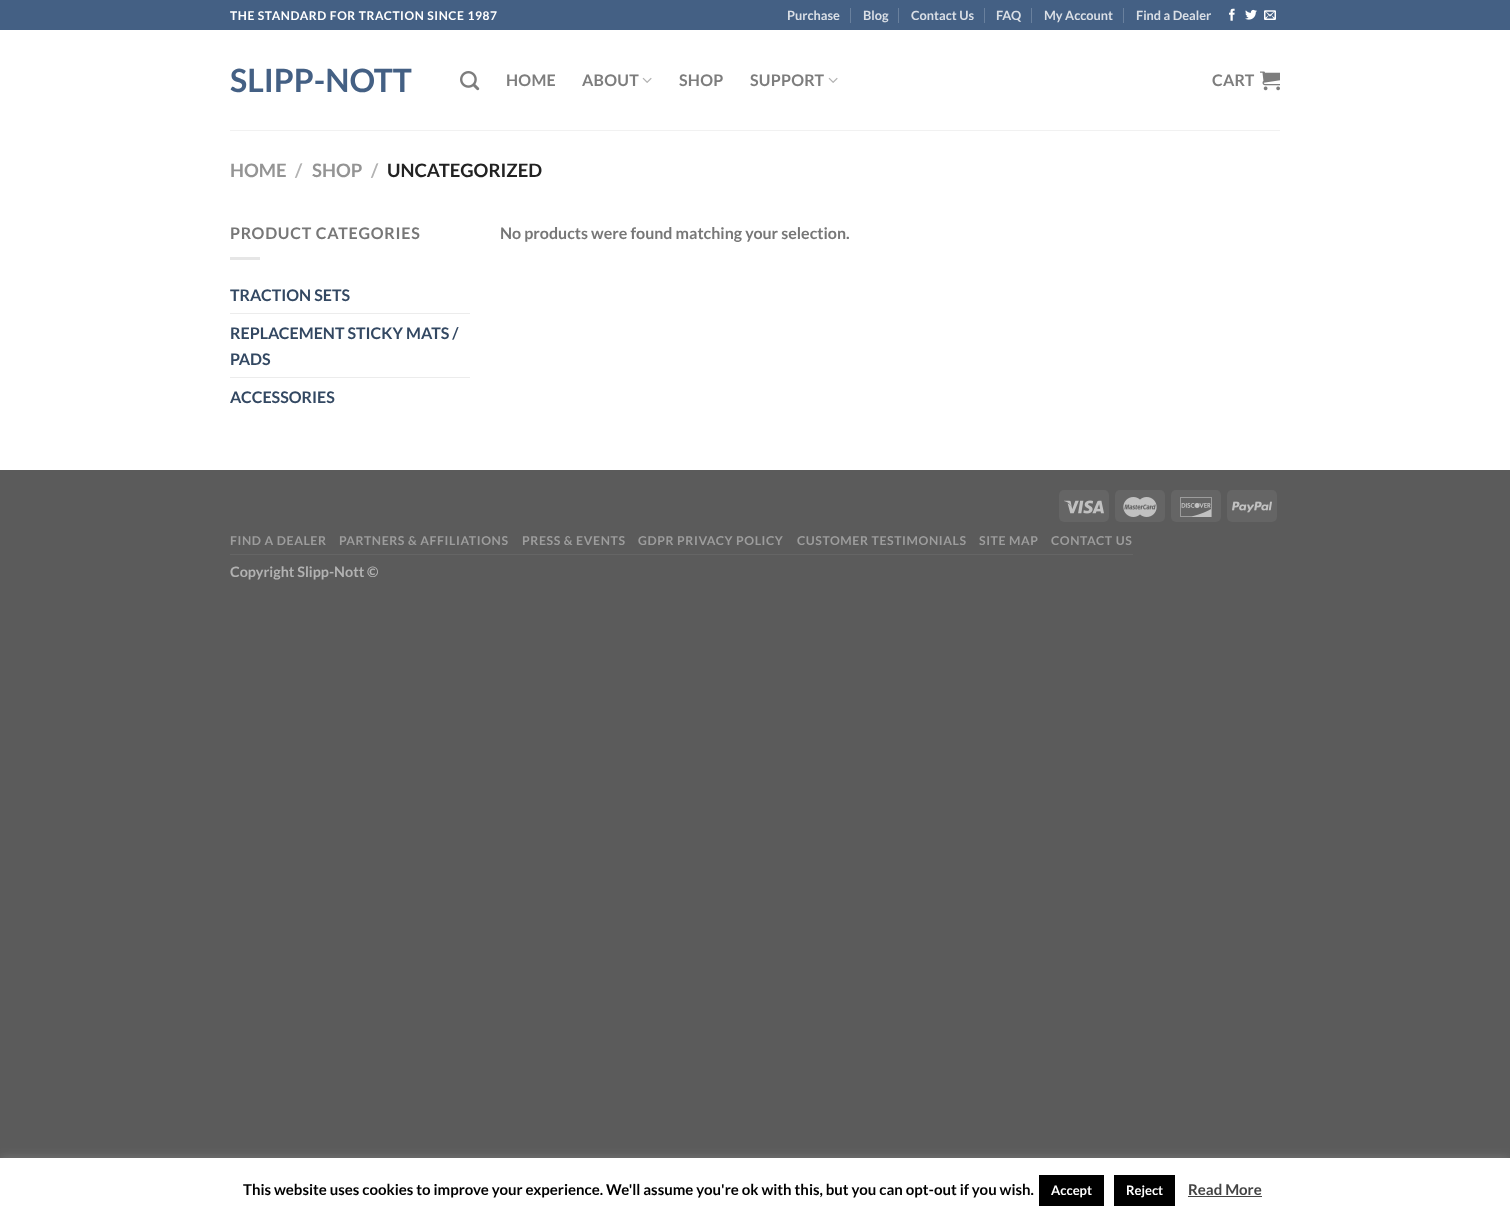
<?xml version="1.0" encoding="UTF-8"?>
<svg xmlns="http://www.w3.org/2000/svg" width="1510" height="1223">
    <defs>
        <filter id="blur1" x="-50%" y="-200%" width="200%" height="500%"><feGaussianBlur stdDeviation="5"/></filter>
    </defs>
    <rect width="100%" height="100%" fill="#5B5B5B"/>
    <rect x="0" y="30" width="1510" height="440" fill="#FFFFFF"/>
    <rect x="0" y="0" width="1510" height="30" fill="#446084"/>
    <text x="230" y="20" font-family="Lato" font-size="12" font-weight="700" letter-spacing="0.6" fill="#FFFFFF">THE STANDARD FOR TRACTION SINCE 1987</text>
    <text x="787" y="20" font-family="Lato" font-size="12.75" font-weight="700" fill="#DADFE6">Purchase</text>
    <rect x="850" y="8" width="1" height="15" fill="#69809D"/>
    <text x="863" y="20" font-family="Lato" font-size="12.75" font-weight="700" fill="#DADFE6">Blog</text>
    <rect x="898" y="8" width="1" height="15" fill="#69809D"/>
    <text x="911" y="20" font-family="Lato" font-size="12.75" font-weight="700" fill="#DADFE6">Contact Us</text>
    <rect x="984" y="8" width="1" height="15" fill="#69809D"/>
    <text x="996" y="20" font-family="Lato" font-size="12.75" font-weight="700" fill="#DADFE6">FAQ</text>
    <rect x="1031" y="8" width="1" height="15" fill="#69809D"/>
    <text x="1044" y="20" font-family="Lato" font-size="12.75" font-weight="700" fill="#DADFE6">My Account</text>
    <rect x="1123" y="8" width="1" height="15" fill="#69809D"/>
    <text x="1136" y="20" font-family="Lato" font-size="12.75" font-weight="700" fill="#DADFE6">Find a Dealer</text>
    <image x="1229" y="8" width="6" height="13" href="img_01.png"/>
    <image x="1245" y="9" width="12" height="11" href="img_02.png"/>
    <image x="1264" y="10" width="12" height="10" href="img_03.png"/>
    <text x="230" y="92" font-family="Lato" font-size="32" font-weight="700" fill="#446084">SLIPP-NOTT</text>
    <image x="460" y="71" width="20" height="20" href="img_04.png"/>
    <text x="506" y="86" font-family="Lato" font-size="16" font-weight="700" letter-spacing="0.25" fill="#7D7D7D">HOME</text>
    <text x="582" y="86" font-family="Lato" font-size="16" font-weight="700" letter-spacing="0.25" fill="#7D7D7D">ABOUT</text>
    <image x="642" y="77" width="10" height="6" href="img_05.png"/>
    <text x="679" y="86" font-family="Lato" font-size="16" font-weight="700" letter-spacing="0.25" fill="#7D7D7D">SHOP</text>
    <text x="750" y="86" font-family="Lato" font-size="16" font-weight="700" letter-spacing="0.25" fill="#7D7D7D">SUPPORT</text>
    <image x="828" y="77" width="10" height="6" href="img_05.png"/>
    <text x="1212" y="86" font-family="Lato" font-size="16" font-weight="700" letter-spacing="0.25" fill="#7D7D7D">CART</text>
    <image x="1260" y="71" width="20" height="20" href="img_06.png"/>
    <rect x="230" y="130" width="1050" height="1" fill="#F1F1F1"/>
    <text x="230" y="177" font-family="Lato" font-size="18.5" font-weight="700" fill="#949494">HOME</text>
    <text x="295" y="177" font-family="Lato" font-size="18.5" font-weight="700" fill="#B2B2B2">/</text>
    <text x="312" y="177" font-family="Lato" font-size="18.5" font-weight="700" fill="#949494">SHOP</text>
    <text x="371" y="177" font-family="Lato" font-size="18.5" font-weight="700" fill="#B2B2B2">/</text>
    <text x="387" y="177" font-family="Lato" font-size="18.5" font-weight="700" fill="#222222">UNCATEGORIZED</text>
    <text x="230" y="239" font-family="Lato" font-size="16" font-weight="700" letter-spacing="0.75" fill="#777777">PRODUCT CATEGORIES</text>
    <rect x="230" y="257" width="30" height="3" fill="#E6E6E6"/>
    <text x="230" y="301" font-family="Lato" font-size="16" font-weight="700" fill="#334862">TRACTION SETS</text>
    <rect x="230" y="313" width="240" height="1" fill="#ECECEC"/>
    <text font-family="Lato" font-size="16" font-weight="700" fill="#334862">
        <tspan x="230" y="339">REPLACEMENT STICKY MATS /</tspan>
        <tspan x="230" y="365">PADS</tspan>
    </text>
    <rect x="230" y="377" width="240" height="1" fill="#ECECEC"/>
    <text x="230" y="403" font-family="Lato" font-size="16" font-weight="700" fill="#334862">ACCESSORIES</text>
    <text x="500" y="239" font-family="Lato" font-size="16" font-weight="700" fill="#777777">No products were found matching your selection.</text>
    <rect x="1059" y="490" width="50" height="32" rx="5" fill="#656565"/>
    <image x="1064" y="500" width="40" height="14" href="img_07.png"/>
    <rect x="1115" y="490" width="50" height="32" rx="5" fill="#656565"/>
    <image x="1123" y="497" width="34" height="20" href="img_08.png"/>
    <rect x="1171" y="490" width="50" height="32" rx="5" fill="#656565"/>
    <image x="1180" y="497" width="32" height="20" href="img_09.png"/>
    <rect x="1227" y="490" width="50" height="32" rx="5" fill="#656565"/>
    <image x="1232" y="501" width="40" height="12" href="img_10.png"/>
    <rect x="230" y="554" width="903" height="1" fill="#656565"/>
    <text x="230" y="545" font-family="Lato" font-size="12.25" font-weight="700" letter-spacing="0.6" fill="#9D9D9D">FIND A DEALER</text>
    <text x="339" y="545" font-family="Lato" font-size="12.25" font-weight="700" letter-spacing="0.6" fill="#9D9D9D">PARTNERS &amp; AFFILIATIONS</text>
    <text x="522" y="545" font-family="Lato" font-size="12.25" font-weight="700" letter-spacing="0.6" fill="#9D9D9D">PRESS &amp; EVENTS</text>
    <text x="638" y="545" font-family="Lato" font-size="12.25" font-weight="700" letter-spacing="0.6" fill="#9D9D9D">GDPR PRIVACY POLICY</text>
    <text x="797" y="545" font-family="Lato" font-size="12.25" font-weight="700" letter-spacing="0.6" fill="#9D9D9D">CUSTOMER TESTIMONIALS</text>
    <text x="979" y="545" font-family="Lato" font-size="12.25" font-weight="700" letter-spacing="0.6" fill="#9D9D9D">SITE MAP</text>
    <text x="1051" y="545" font-family="Lato" font-size="12.25" font-weight="700" letter-spacing="0.6" fill="#9D9D9D">CONTACT US</text>
    <text x="230" y="577" font-family="Lato" font-size="14.4" font-weight="700" fill="#B2B2B2">Copyright Slipp-Nott ©</text>
    <rect x="0" y="1157" width="1510" height="65" fill="#ACABAB" fill-opacity="0.3" filter="url(#blur1)"/>
    <rect x="0" y="1158" width="1510" height="65" fill="#FFFFFF"/>
    <text x="243" y="1195" font-family="Lato" font-size="15" font-weight="700" fill="#000000">This website uses cookies to improve your experience. We'll assume you're ok with this, but you can opt-out if you wish.</text>
    <rect x="1039" y="1175" width="65" height="31" fill="#000000"/>
    <text x="1051" y="1195" font-family="Lato" font-size="13" font-weight="700" fill="#FFFFFF">Accept</text>
    <rect x="1114" y="1175" width="61" height="31" fill="#000000"/>
    <text x="1126" y="1195" font-family="Lato" font-size="13" font-weight="700" fill="#FFFFFF">Reject</text>
    <text x="1188" y="1195" font-family="Lato" font-size="15" font-weight="700" fill="#444444">Read More</text>
    <rect x="1188" y="1196" width="74" height="1" fill="#444444"/>
</svg>
